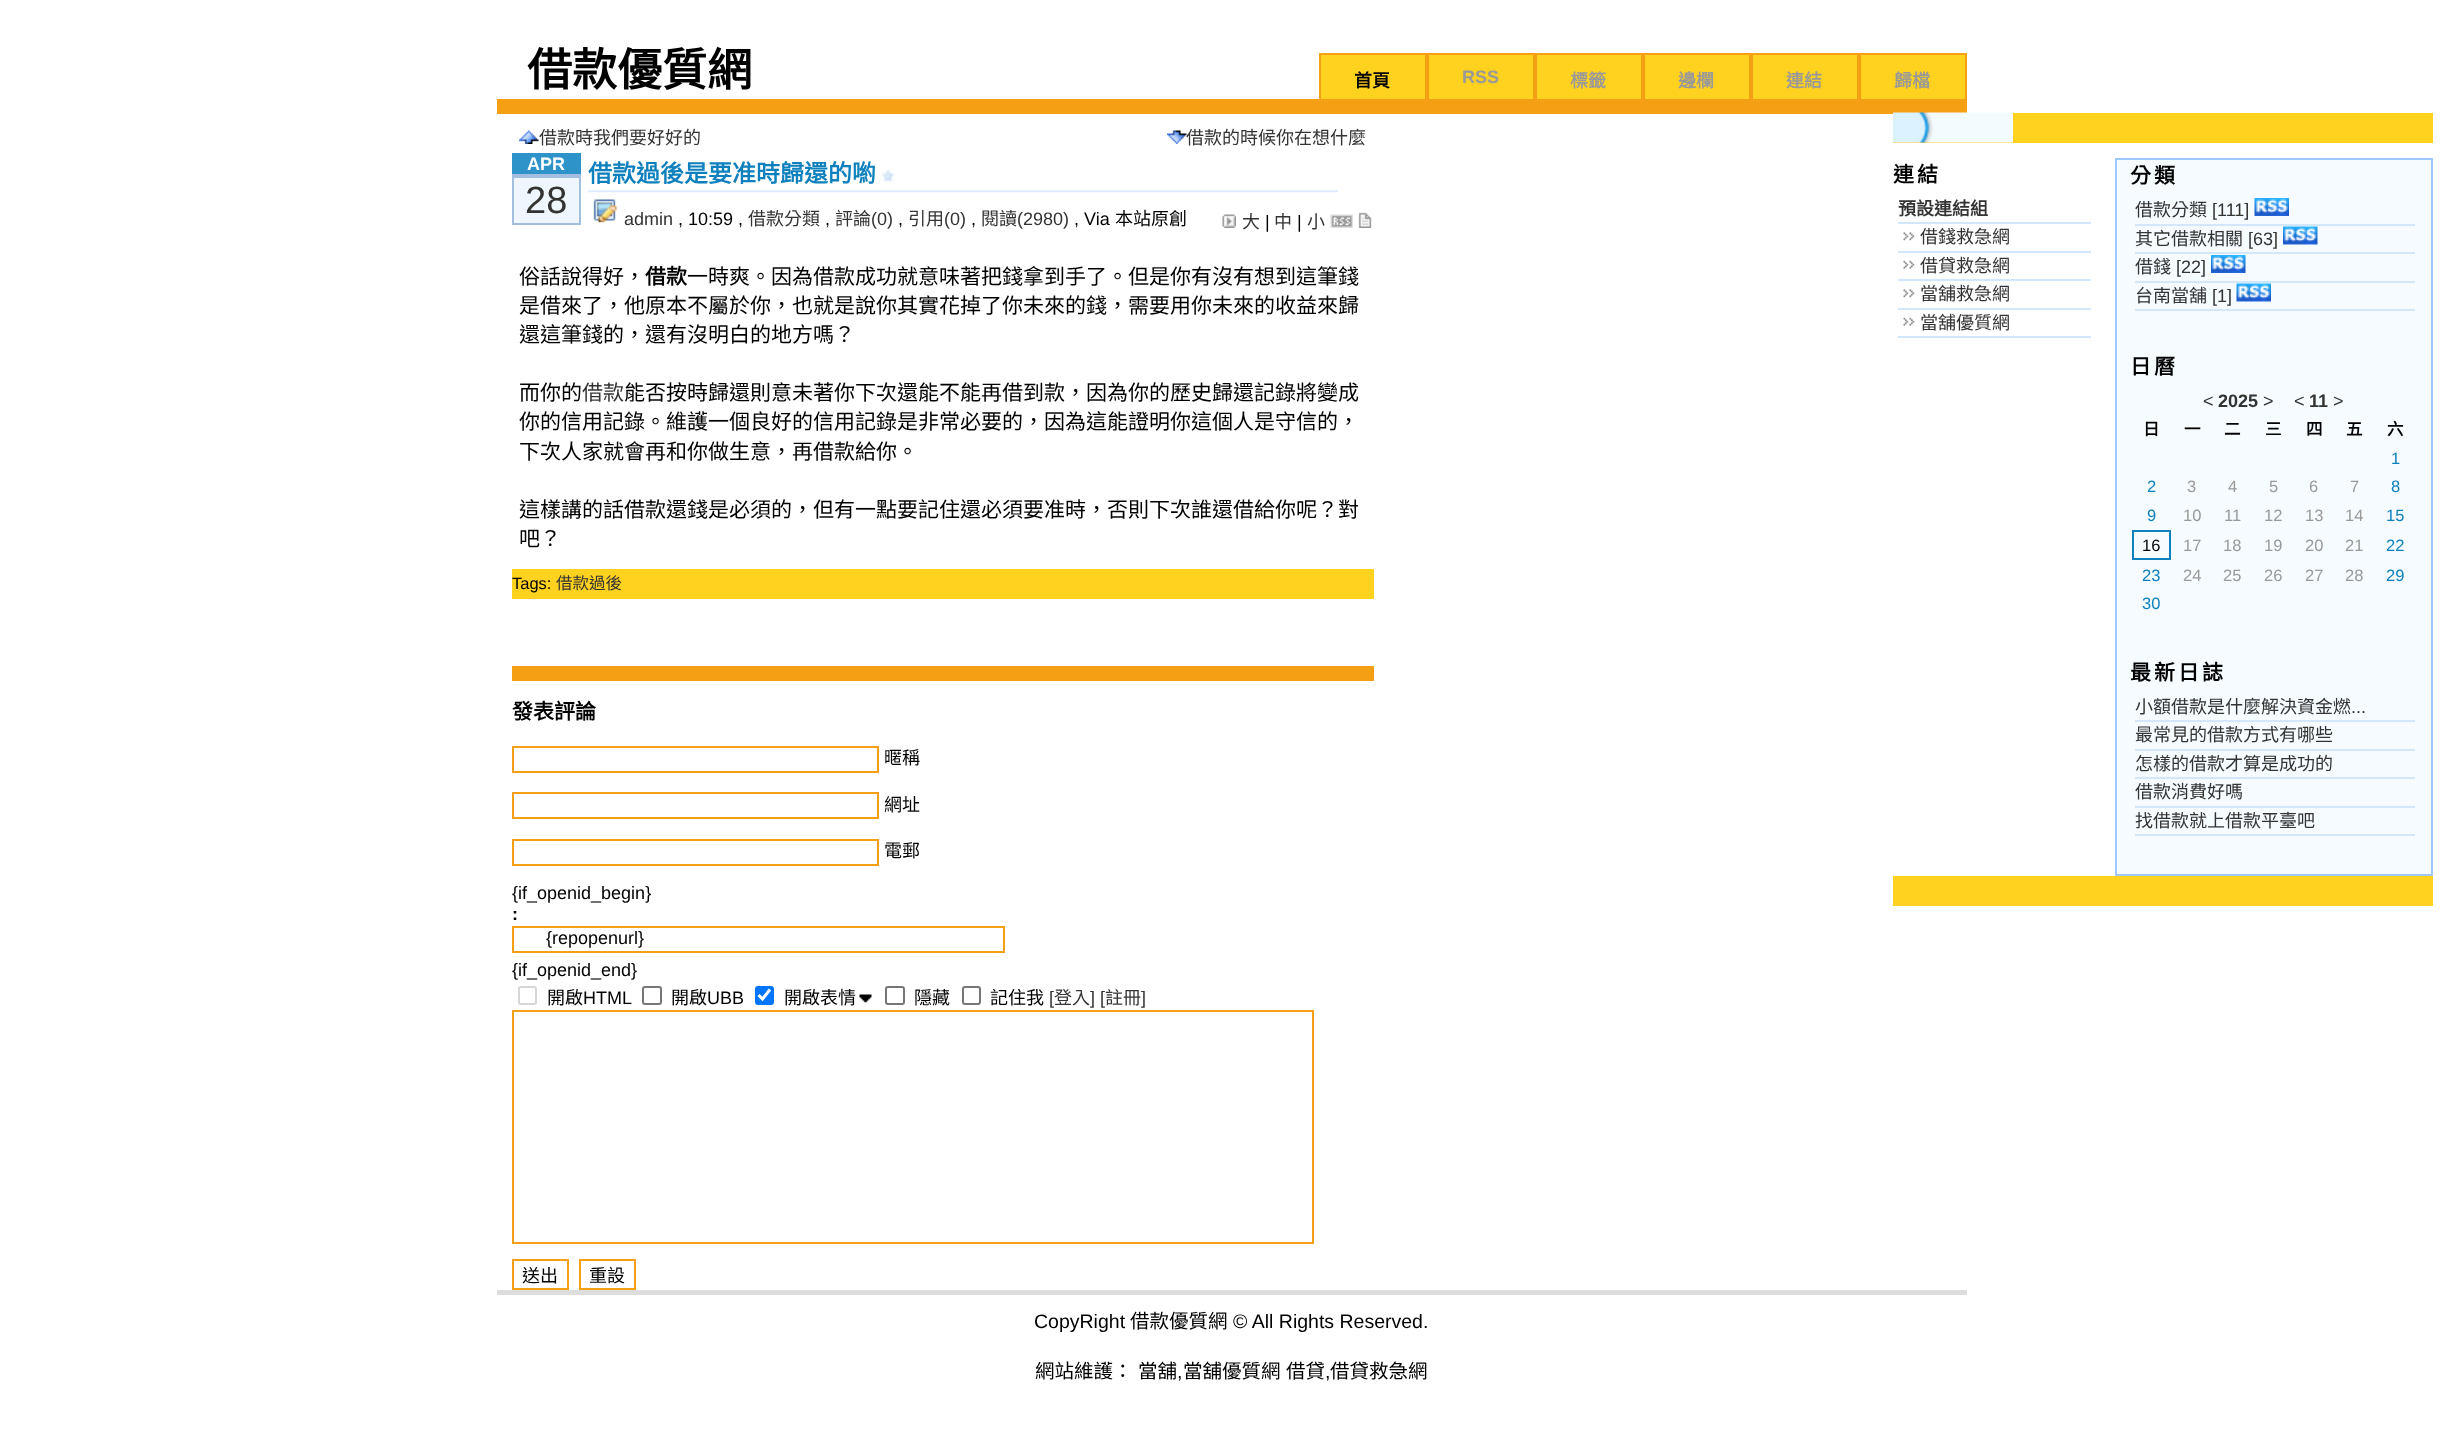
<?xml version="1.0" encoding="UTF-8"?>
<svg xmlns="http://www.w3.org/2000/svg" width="2462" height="1447">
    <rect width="100%" height="100%" fill="#FFFFFF"/>
    <rect x="497" y="99" width="1470" height="15" fill="#F59F15"/>
    <text x="527" y="86" font-family="Noto Sans CJK TC" font-size="45" font-weight="700" fill="#000000">借款優質網</text>
    <rect x="1321" y="55" width="104" height="44" fill="#FFD220"/>
    <rect x="1319" y="53" width="648" height="2" fill="#F59F15"/>
    <rect x="1425" y="53" width="4" height="46" fill="#F59F15"/>
    <rect x="1319" y="53" width="2" height="46" fill="#F59F15"/>
    <text x="1354" y="87" font-family="Noto Sans CJK TC" font-size="18" font-weight="700" fill="#000000">首頁</text>
    <rect x="1429" y="55" width="104" height="44" fill="#FFD220"/>
    <rect x="1533" y="53" width="4" height="46" fill="#F59F15"/>
    <text x="1462" y="83" font-family="Liberation Sans" font-size="18" font-weight="700" fill="#999999">RSS</text>
    <rect x="1537" y="55" width="104" height="44" fill="#FFD220"/>
    <rect x="1641" y="53" width="4" height="46" fill="#F59F15"/>
    <text x="1570" y="87" font-family="Noto Sans CJK TC" font-size="18" font-weight="700" fill="#999999">標籤</text>
    <rect x="1645" y="55" width="104" height="44" fill="#FFD220"/>
    <rect x="1749" y="53" width="4" height="46" fill="#F59F15"/>
    <text x="1678" y="87" font-family="Noto Sans CJK TC" font-size="18" font-weight="700" fill="#999999">邊欄</text>
    <rect x="1753" y="55" width="104" height="44" fill="#FFD220"/>
    <rect x="1857" y="53" width="4" height="46" fill="#F59F15"/>
    <text x="1786" y="87" font-family="Noto Sans CJK TC" font-size="18" font-weight="700" fill="#999999">連結</text>
    <rect x="1861" y="55" width="104" height="44" fill="#FFD220"/>
    <rect x="1965" y="53" width="2" height="46" fill="#F59F15"/>
    <text x="1894" y="87" font-family="Noto Sans CJK TC" font-size="18" font-weight="700" fill="#999999">歸檔</text>
    <image x="519" y="130" width="20" height="14" href="img_01.png"/>
    <text x="539" y="144" font-family="Noto Sans CJK TC" font-size="18" fill="#333333">借款時我們要好好的</text>
    <image x="1167" y="130" width="20" height="14" href="img_02.png"/>
    <text x="1186" y="144" font-family="Noto Sans CJK TC" font-size="18" fill="#333333">借款的時候你在想什麼</text>
    <image x="587" y="190" width="751" height="33" href="img_03.png"/>
    <rect x="512" y="153" width="69" height="21" fill="#2E93C9"/>
    <rect x="512" y="174" width="69" height="2" fill="#A4BEDF"/>
    <text x="527" y="170" font-family="Liberation Sans" font-size="18" font-weight="700" fill="#FFFFFF">APR</text>
    <rect x="513" y="177" width="67" height="47" fill="#EFF6FE" stroke="#A4BEDF" stroke-width="2"/>
    <text x="525" y="213" font-family="Liberation Sans" font-size="38" fill="#333333">28</text>
    <text x="588" y="182" font-family="Noto Sans CJK TC" font-size="24" font-weight="700" fill="#0D80BD">借款過後是要准時歸還的喲</text>
    <image x="882" y="169" width="12" height="13" href="img_04.png"/>
    <text x="624" y="225" font-family="Liberation Sans" font-size="18" fill="#333333">admin</text>
    <text x="678" y="225" font-family="Liberation Sans" font-size="18" fill="#000000">, 10:59 ,</text>
    <text x="748" y="225" font-family="Noto Sans CJK TC" font-size="18" fill="#333333">借款分類</text>
    <text x="825" y="225" font-family="Liberation Sans" font-size="18" fill="#000000">,</text>
    <text x="835" y="225" font-family="Noto Sans CJK TC" font-size="18" fill="#333333">評論</text>
    <text x="871" y="225" font-family="Liberation Sans" font-size="18" fill="#333333">(0)</text>
    <text x="898" y="225" font-family="Liberation Sans" font-size="18" fill="#000000">,</text>
    <text x="908" y="225" font-family="Noto Sans CJK TC" font-size="18" fill="#333333">引用</text>
    <text x="944" y="225" font-family="Liberation Sans" font-size="18" fill="#333333">(0)</text>
    <text x="971" y="225" font-family="Liberation Sans" font-size="18" fill="#000000">,</text>
    <text x="981" y="225" font-family="Noto Sans CJK TC" font-size="18" fill="#333333">閱讀</text>
    <text x="1017" y="225" font-family="Liberation Sans" font-size="18" fill="#333333">(2980)</text>
    <text x="1074" y="225" font-family="Liberation Sans" font-size="18" fill="#000000">, Via</text>
    <text x="1115" y="225" font-family="Noto Sans CJK TC" font-size="18" fill="#000000">本站原創</text>
    <image x="1222" y="214" width="14" height="14" href="img_05.png"/>
    <text x="1242" y="228" font-family="Noto Sans CJK TC" font-size="18" fill="#333333">大</text>
    <text x="1265" y="228" font-family="Liberation Sans" font-size="18" fill="#000000">|</text>
    <text x="1274" y="228" font-family="Noto Sans CJK TC" font-size="18" fill="#333333">中</text>
    <text x="1297" y="228" font-family="Liberation Sans" font-size="18" fill="#000000">|</text>
    <text x="1307" y="228" font-family="Noto Sans CJK TC" font-size="18" fill="#333333">小</text>
    <image x="1330" y="214" width="23" height="14" href="img_06.png"/>
    <image x="1358" y="212" width="14" height="16" href="img_07.png"/>
    <text x="519" y="284" font-family="Noto Sans CJK TC" font-size="21" fill="#000000">俗話說得好，</text>
    <text x="645" y="284" font-family="Noto Sans CJK TC" font-size="21" font-weight="700" fill="#000000">借款</text>
    <text x="687" y="284" font-family="Noto Sans CJK TC" font-size="21" fill="#000000">一時爽。因為借款成功就意味著把錢拿到手了。但是你有沒有想到這筆錢</text>
    <text font-family="Noto Sans CJK TC" font-size="21" fill="#000000">
        <tspan x="519" y="313">是借來了，他原本不屬於你，也就是說你其實花掉了你未來的錢，需要用你未來的收益來歸</tspan>
        <tspan x="519" y="342">還這筆錢的，還有沒明白的地方嗎？</tspan>
    </text>
    <text x="519" y="400" font-family="Noto Sans CJK TC" font-size="21" fill="#000000">而你的</text>
    <text x="582" y="400" font-family="Noto Sans CJK TC" font-size="21" fill="#333333">借款</text>
    <text x="624" y="400" font-family="Noto Sans CJK TC" font-size="21" fill="#000000">能否按時歸還則意未著你下次還能不能再借到款，因為你的歷史歸還記錄將變成</text>
    <text font-family="Noto Sans CJK TC" font-size="21" fill="#000000">
        <tspan x="519" y="429">你的信用記錄。維護一個良好的信用記錄是非常必要的，因為這能證明你這個人是守信的，</tspan>
        <tspan x="519" y="459">下次人家就會再和你做生意，再借款給你。</tspan>
    </text>
    <text font-family="Noto Sans CJK TC" font-size="21" fill="#000000">
        <tspan x="519" y="517">這樣講的話借款還錢是必須的，但有一點要記住還必須要准時，否則下次誰還借給你呢？對</tspan>
        <tspan x="519" y="546">吧？</tspan>
    </text>
    <rect x="512" y="569" width="862" height="30" fill="#FFD220"/>
    <text x="512" y="589" font-family="Liberation Sans" font-size="16.5" fill="#000000">Tags:</text>
    <text x="556" y="589" font-family="Noto Sans CJK TC" font-size="16.5" fill="#333333">借款過後</text>
    <rect x="512" y="666" width="862" height="15" fill="#F59F15"/>
    <text x="512" y="719" font-family="Noto Sans CJK TC" font-size="21" font-weight="700" fill="#000000">發表評論</text>
    <rect x="513" y="747" width="365" height="25" fill="none" stroke="#F59F15" stroke-width="2"/>
    <text x="884" y="764" font-family="Noto Sans CJK TC" font-size="18" fill="#000000">暱稱</text>
    <rect x="513" y="793" width="365" height="25" fill="none" stroke="#F59F15" stroke-width="2"/>
    <text x="884" y="811" font-family="Noto Sans CJK TC" font-size="18" fill="#000000">網址</text>
    <rect x="513" y="840" width="365" height="25" fill="none" stroke="#F59F15" stroke-width="2"/>
    <text x="884" y="857" font-family="Noto Sans CJK TC" font-size="18" fill="#000000">電郵</text>
    <text x="512" y="899" font-family="Liberation Sans" font-size="18" fill="#000000">{if_openid_begin}</text>
    <text x="512" y="920" font-family="Liberation Sans" font-size="18" font-weight="700" fill="#000000">:</text>
    <rect x="513" y="927" width="491" height="25" fill="none" stroke="#F59F15" stroke-width="2"/>
    <text x="546" y="944" font-family="Liberation Sans" font-size="18" fill="#000000">{repopenurl}</text>
    <text x="512" y="976" font-family="Liberation Sans" font-size="18" fill="#000000">{if_openid_end}</text>
    <rect x="519" y="987" width="17" height="17" rx="2" fill="none" stroke="#D6D6D6" stroke-width="2"/>
    <text x="547" y="1004" font-family="Noto Sans CJK TC" font-size="18" fill="#000000">開啟</text>
    <text x="583" y="1004" font-family="Liberation Sans" font-size="18" fill="#000000">HTML</text>
    <rect x="643" y="987" width="18" height="17" rx="2" fill="none" stroke="#767676" stroke-width="2"/>
    <text x="671" y="1004" font-family="Noto Sans CJK TC" font-size="18" fill="#000000">開啟</text>
    <text x="707" y="1004" font-family="Liberation Sans" font-size="18" fill="#000000">UBB</text>
    <rect x="755" y="986" width="19" height="19" rx="3" fill="#0075FF"/>
    <path d="M 758.5 995 L 762.5 999 L 770 989.5" fill="none" stroke="#FFFFFF" stroke-width="3.1"/>
    <text x="784" y="1004" font-family="Noto Sans CJK TC" font-size="18" fill="#000000">開啟表情</text>
    <image x="859" y="994" width="13" height="9" href="img_08.png"/>
    <rect x="886" y="987" width="18" height="17" rx="2" fill="none" stroke="#767676" stroke-width="2"/>
    <text x="914" y="1004" font-family="Noto Sans CJK TC" font-size="18" fill="#000000">隱藏</text>
    <rect x="963" y="987" width="17" height="17" rx="2" fill="none" stroke="#767676" stroke-width="2"/>
    <text x="990" y="1004" font-family="Noto Sans CJK TC" font-size="18" fill="#000000">記住我</text>
    <text x="1049" y="1004" font-family="Liberation Sans" font-size="18" fill="#333333">[</text>
    <text x="1054" y="1004" font-family="Noto Sans CJK TC" font-size="18" fill="#333333">登入</text>
    <text x="1090" y="1004" font-family="Liberation Sans" font-size="18" fill="#333333">] [</text>
    <text x="1105" y="1004" font-family="Noto Sans CJK TC" font-size="18" fill="#333333">註冊</text>
    <text x="1141" y="1004" font-family="Liberation Sans" font-size="18" fill="#333333">]</text>
    <rect x="513" y="1011" width="800" height="232" fill="none" stroke="#F59F15" stroke-width="2"/>
    <rect x="513" y="1260" width="55" height="29" fill="none" stroke="#F59F15" stroke-width="2"/>
    <text x="522" y="1282" font-family="Noto Sans CJK TC" font-size="18" fill="#000000">送出</text>
    <rect x="580" y="1260" width="55" height="29" fill="none" stroke="#F59F15" stroke-width="2"/>
    <text x="589" y="1282" font-family="Noto Sans CJK TC" font-size="18" fill="#000000">重設</text>
    <rect x="1893" y="113" width="540" height="30" fill="#FFD220"/>
    <image x="1893" y="112" width="120" height="31" href="img_09.png"/>
    <text x="1893" y="182" font-family="Noto Sans CJK TC" font-size="21" font-weight="700" letter-spacing="3" fill="#000000">連結</text>
    <rect x="1898" y="222" width="193" height="2" fill="#D3E7FC"/>
    <text x="1898" y="215" font-family="Noto Sans CJK TC" font-size="18" font-weight="700" fill="#333333">預設連結組</text>
    <image x="1903" y="232" width="12" height="9" href="img_10.png"/>
    <rect x="1898" y="251" width="193" height="2" fill="#D3E7FC"/>
    <text x="1920" y="243" font-family="Noto Sans CJK TC" font-size="18" fill="#333333">借錢救急網</text>
    <image x="1903" y="260" width="12" height="9" href="img_11.png"/>
    <rect x="1898" y="279" width="193" height="2" fill="#D3E7FC"/>
    <text x="1920" y="272" font-family="Noto Sans CJK TC" font-size="18" fill="#333333">借貸救急網</text>
    <image x="1903" y="289" width="12" height="9" href="img_10.png"/>
    <rect x="1898" y="308" width="193" height="2" fill="#D3E7FC"/>
    <text x="1920" y="300" font-family="Noto Sans CJK TC" font-size="18" fill="#333333">當舖救急網</text>
    <image x="1903" y="317" width="12" height="9" href="img_11.png"/>
    <rect x="1898" y="336" width="193" height="2" fill="#D3E7FC"/>
    <text x="1920" y="329" font-family="Noto Sans CJK TC" font-size="18" fill="#333333">當舖優質網</text>
    <rect x="2116" y="159" width="316" height="716" fill="#F5FBFE" stroke="#9EC9FF" stroke-width="2"/>
    <text x="2130" y="183" font-family="Noto Sans CJK TC" font-size="21" font-weight="700" letter-spacing="3" fill="#000000">分類</text>
    <rect x="2135" y="224" width="280" height="2" fill="#D3E7FC"/>
    <text x="2135" y="216" font-family="Noto Sans CJK TC" font-size="18" fill="#333333">借款分類</text>
    <text x="2212" y="216" font-family="Liberation Sans" font-size="18" fill="#333333">[111]</text>
    <image x="2254" y="198" width="35" height="18" href="img_12.png"/>
    <rect x="2135" y="252" width="280" height="2" fill="#D3E7FC"/>
    <text x="2135" y="245" font-family="Noto Sans CJK TC" font-size="18" fill="#333333">其它借款相關</text>
    <text x="2248" y="245" font-family="Liberation Sans" font-size="18" fill="#333333">[63]</text>
    <image x="2283" y="226" width="35" height="19" href="img_13.png"/>
    <rect x="2135" y="281" width="280" height="2" fill="#D3E7FC"/>
    <text x="2135" y="273" font-family="Noto Sans CJK TC" font-size="18" fill="#333333">借錢</text>
    <text x="2176" y="273" font-family="Liberation Sans" font-size="18" fill="#333333">[22]</text>
    <image x="2211" y="255" width="35" height="18" href="img_14.png"/>
    <rect x="2135" y="309" width="280" height="2" fill="#D3E7FC"/>
    <text x="2135" y="302" font-family="Noto Sans CJK TC" font-size="18" fill="#333333">台南當舖</text>
    <text x="2212" y="302" font-family="Liberation Sans" font-size="18" fill="#333333">[1]</text>
    <image x="2236" y="283" width="35" height="19" href="img_15.png"/>
    <text x="2130" y="374" font-family="Noto Sans CJK TC" font-size="21" font-weight="700" letter-spacing="3" fill="#000000">日曆</text>
    <text x="2203" y="407" font-family="Liberation Sans" font-size="18" fill="#333333">&lt;</text>
    <text x="2218" y="407" font-family="Liberation Sans" font-size="18" font-weight="700" fill="#333333">2025</text>
    <text x="2263" y="407" font-family="Liberation Sans" font-size="18" fill="#333333">&gt;</text>
    <text x="2294" y="407" font-family="Liberation Sans" font-size="18" fill="#333333">&lt;</text>
    <text x="2309" y="407" font-family="Liberation Sans" font-size="18" font-weight="700" fill="#333333">11</text>
    <text x="2333" y="407" font-family="Liberation Sans" font-size="18" fill="#333333">&gt;</text>
    <text x="2143" y="435" font-family="Noto Sans CJK TC" font-size="16.5" font-weight="700" fill="#000000">日</text>
    <text x="2184" y="435" font-family="Noto Sans CJK TC" font-size="16.5" font-weight="700" fill="#000000">一</text>
    <text x="2224" y="435" font-family="Noto Sans CJK TC" font-size="16.5" font-weight="700" fill="#000000">二</text>
    <text x="2265" y="435" font-family="Noto Sans CJK TC" font-size="16.5" font-weight="700" fill="#000000">三</text>
    <text x="2306" y="435" font-family="Noto Sans CJK TC" font-size="16.5" font-weight="700" fill="#000000">四</text>
    <text x="2346" y="435" font-family="Noto Sans CJK TC" font-size="16.5" font-weight="700" fill="#000000">五</text>
    <text x="2387" y="435" font-family="Noto Sans CJK TC" font-size="16.5" font-weight="700" fill="#000000">六</text>
    <text x="2391" y="464" font-family="Liberation Sans" font-size="16.5" fill="#0D80BD">1</text>
    <text x="2147" y="492" font-family="Liberation Sans" font-size="16.5" fill="#0D80BD">2</text>
    <text x="2187" y="492" font-family="Liberation Sans" font-size="16.5" fill="#999999">3</text>
    <text x="2228" y="492" font-family="Liberation Sans" font-size="16.5" fill="#999999">4</text>
    <text x="2269" y="492" font-family="Liberation Sans" font-size="16.5" fill="#999999">5</text>
    <text x="2309" y="492" font-family="Liberation Sans" font-size="16.5" fill="#999999">6</text>
    <text x="2350" y="492" font-family="Liberation Sans" font-size="16.5" fill="#999999">7</text>
    <text x="2391" y="492" font-family="Liberation Sans" font-size="16.5" fill="#0D80BD">8</text>
    <text x="2147" y="521" font-family="Liberation Sans" font-size="16.5" fill="#0D80BD">9</text>
    <text x="2183" y="521" font-family="Liberation Sans" font-size="16.5" fill="#999999">10</text>
    <text x="2224" y="521" font-family="Liberation Sans" font-size="16.5" fill="#999999">11</text>
    <text x="2264" y="521" font-family="Liberation Sans" font-size="16.5" fill="#999999">12</text>
    <text x="2305" y="521" font-family="Liberation Sans" font-size="16.5" fill="#999999">13</text>
    <text x="2345" y="521" font-family="Liberation Sans" font-size="16.5" fill="#999999">14</text>
    <text x="2386" y="521" font-family="Liberation Sans" font-size="16.5" fill="#0D80BD">15</text>
    <rect x="2133" y="531" width="37" height="28" fill="none" stroke="#0D80BD" stroke-width="2"/>
    <text x="2142" y="551" font-family="Liberation Sans" font-size="16.5" fill="#000000">16</text>
    <text x="2183" y="551" font-family="Liberation Sans" font-size="16.5" fill="#999999">17</text>
    <text x="2223" y="551" font-family="Liberation Sans" font-size="16.5" fill="#999999">18</text>
    <text x="2264" y="551" font-family="Liberation Sans" font-size="16.5" fill="#999999">19</text>
    <text x="2305" y="551" font-family="Liberation Sans" font-size="16.5" fill="#999999">20</text>
    <text x="2345" y="551" font-family="Liberation Sans" font-size="16.5" fill="#999999">21</text>
    <text x="2386" y="551" font-family="Liberation Sans" font-size="16.5" fill="#0D80BD">22</text>
    <text x="2142" y="581" font-family="Liberation Sans" font-size="16.5" fill="#0D80BD">23</text>
    <text x="2183" y="581" font-family="Liberation Sans" font-size="16.5" fill="#999999">24</text>
    <text x="2223" y="581" font-family="Liberation Sans" font-size="16.5" fill="#999999">25</text>
    <text x="2264" y="581" font-family="Liberation Sans" font-size="16.5" fill="#999999">26</text>
    <text x="2305" y="581" font-family="Liberation Sans" font-size="16.5" fill="#999999">27</text>
    <text x="2345" y="581" font-family="Liberation Sans" font-size="16.5" fill="#999999">28</text>
    <text x="2386" y="581" font-family="Liberation Sans" font-size="16.5" fill="#0D80BD">29</text>
    <text x="2142" y="609" font-family="Liberation Sans" font-size="16.5" fill="#0D80BD">30</text>
    <text x="2130" y="680" font-family="Noto Sans CJK TC" font-size="21" font-weight="700" letter-spacing="3" fill="#000000">最新日誌</text>
    <rect x="2135" y="720" width="280" height="2" fill="#D3E7FC"/>
    <text x="2135" y="713" font-family="Noto Sans CJK TC" font-size="18" fill="#333333">小額借款是什麼解決資金燃</text>
    <text x="2351" y="713" font-family="Liberation Sans" font-size="18" fill="#333333">...</text>
    <rect x="2135" y="749" width="280" height="2" fill="#D3E7FC"/>
    <text x="2135" y="741" font-family="Noto Sans CJK TC" font-size="18" fill="#333333">最常見的借款方式有哪些</text>
    <rect x="2135" y="777" width="280" height="2" fill="#D3E7FC"/>
    <text x="2135" y="770" font-family="Noto Sans CJK TC" font-size="18" fill="#333333">怎樣的借款才算是成功的</text>
    <rect x="2135" y="806" width="280" height="2" fill="#D3E7FC"/>
    <text x="2135" y="798" font-family="Noto Sans CJK TC" font-size="18" fill="#333333">借款消費好嗎</text>
    <rect x="2135" y="834" width="280" height="2" fill="#D3E7FC"/>
    <text x="2135" y="827" font-family="Noto Sans CJK TC" font-size="18" fill="#333333">找借款就上借款平臺吧</text>
    <rect x="1893" y="876" width="540" height="30" fill="#FFD220"/>
    <rect x="497" y="1290" width="1470" height="5" fill="#DDDDDD"/>
    <text x="1034" y="1328" font-family="Liberation Sans" font-size="19.5" fill="#000000">CopyRight</text>
    <text x="1130" y="1328" font-family="Noto Sans CJK TC" font-size="19.5" fill="#000000">借款優質網</text>
    <text x="1233" y="1328" font-family="Liberation Sans" font-size="19.5" fill="#000000">© All Rights Reserved.</text>
    <text x="1035" y="1378" font-family="Noto Sans CJK TC" font-size="19.5" fill="#000000">網站維護：</text>
    <text x="1138" y="1378" font-family="Noto Sans CJK TC" font-size="19.5" fill="#000000">當舖</text>
    <text x="1177" y="1378" font-family="Liberation Sans" font-size="19.5" fill="#000000">,</text>
    <text x="1183" y="1378" font-family="Noto Sans CJK TC" font-size="19.5" fill="#000000">當舖優質網</text>
    <text x="1286" y="1378" font-family="Noto Sans CJK TC" font-size="19.5" fill="#000000">借貸</text>
    <text x="1325" y="1378" font-family="Liberation Sans" font-size="19.5" fill="#000000">,</text>
    <text x="1330" y="1378" font-family="Noto Sans CJK TC" font-size="19.5" fill="#000000">借貸救急網</text>
</svg>
